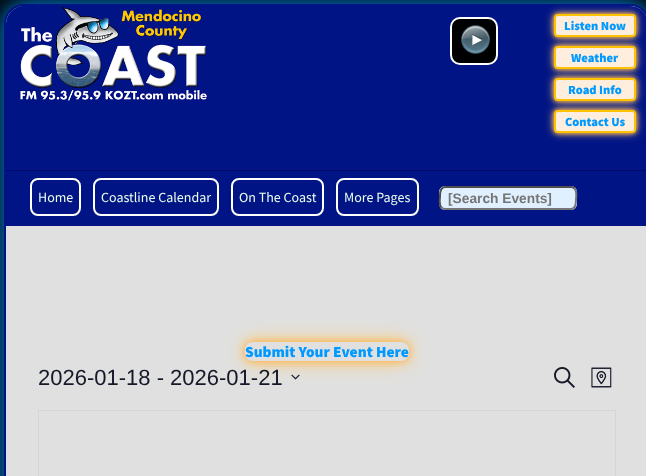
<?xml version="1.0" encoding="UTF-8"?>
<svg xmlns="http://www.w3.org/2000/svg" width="646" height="476">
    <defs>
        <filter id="blur1" x="-50%" y="-200%" width="200%" height="500%"><feGaussianBlur stdDeviation="12"/></filter>
        <filter id="blur2" x="-50%" y="-200%" width="200%" height="500%"><feGaussianBlur stdDeviation="4"/></filter>
        <filter id="blur3" x="-50%" y="-200%" width="200%" height="500%"><feGaussianBlur stdDeviation="2"/></filter>
        <clipPath id="clip1"><path d="M 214 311 H 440 V 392 H 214 Z M 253 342 H 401 C 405.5 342 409 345.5 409 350 V 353 C 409 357.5 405.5 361 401 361 H 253 C 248.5 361 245 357.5 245 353 V 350 C 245 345.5 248.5 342 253 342 Z" clip-rule="evenodd"/></clipPath>
        <filter id="blur4" x="-50%" y="-200%" width="200%" height="500%"><feGaussianBlur stdDeviation="10"/></filter>
        <clipPath id="clip2"><path d="M 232 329 H 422 V 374 H 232 Z M 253 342 H 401 C 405.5 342 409 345.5 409 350 V 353 C 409 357.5 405.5 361 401 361 H 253 C 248.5 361 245 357.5 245 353 V 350 C 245 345.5 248.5 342 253 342 Z" clip-rule="evenodd"/></clipPath>
    </defs>
    <rect width="100%" height="100%" fill="#000000"/>
    <rect x="4" y="4" width="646" height="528" rx="20" fill="#0099FF" filter="url(#blur1)"/>
    <rect x="5" y="5" width="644" height="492" rx="19" fill="#E0E0E0" stroke="#001485" stroke-width="2"/>
    <path d="M 24 6 H 630 C 640 6 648 14 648 24 V 170 H 6 V 24 C 6 14 14 6 24 6 Z" fill="#001485"/>
    <image x="16" y="6" width="192" height="95" href="img_01.png"/>
    <rect x="451" y="18" width="46" height="46" rx="9" fill="#000000" stroke="#FFFFFF" stroke-width="2"/>
    <image x="461" y="25" width="29" height="29" href="img_02.png"/>
    <rect x="554" y="14" width="82" height="23" rx="4" fill="#FFCC66" filter="url(#blur2)"/>
    <rect x="554" y="14" width="82" height="23" rx="4" fill="#FFAA44" filter="url(#blur3)"/>
    <rect x="555" y="15" width="80" height="21" rx="3" fill="#FFEEDD" stroke="#FDC303" stroke-width="2"/>
    <text x="564" y="30" font-family="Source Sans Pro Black" font-size="12.5" font-weight="900" fill="#0099FF">Listen Now</text>
    <rect x="554" y="46" width="82" height="23" rx="4" fill="#FFCC66" filter="url(#blur2)"/>
    <rect x="554" y="46" width="82" height="23" rx="4" fill="#FFAA44" filter="url(#blur3)"/>
    <rect x="555" y="47" width="80" height="21" rx="3" fill="#FFEEDD" stroke="#FDC303" stroke-width="2"/>
    <text x="571" y="62" font-family="Source Sans Pro Black" font-size="12.5" font-weight="900" fill="#0099FF">Weather</text>
    <rect x="554" y="78" width="82" height="23" rx="4" fill="#FFCC66" filter="url(#blur2)"/>
    <rect x="554" y="78" width="82" height="23" rx="4" fill="#FFAA44" filter="url(#blur3)"/>
    <rect x="555" y="79" width="80" height="21" rx="3" fill="#FFEEDD" stroke="#FDC303" stroke-width="2"/>
    <text x="568" y="94" font-family="Source Sans Pro Black" font-size="12.5" font-weight="900" fill="#0099FF">Road Info</text>
    <rect x="554" y="110" width="82" height="23" rx="4" fill="#FFCC66" filter="url(#blur2)"/>
    <rect x="554" y="110" width="82" height="23" rx="4" fill="#FFAA44" filter="url(#blur3)"/>
    <rect x="555" y="111" width="80" height="21" rx="3" fill="#FFEEDD" stroke="#FDC303" stroke-width="2"/>
    <text x="565" y="126" font-family="Source Sans Pro Black" font-size="12.5" font-weight="900" fill="#0099FF">Contact Us</text>
    <rect x="6" y="171" width="640" height="55" fill="#001485"/>
    <rect x="6" y="170" width="640" height="1" fill="#00066A"/>
    <rect x="31" y="179" width="49" height="36" rx="7" fill="none" stroke="#FFFFFF" stroke-width="2"/>
    <text x="38" y="202" font-family="Source Sans Pro" font-size="14" fill="#EAFFED">Home</text>
    <rect x="94" y="179" width="124" height="36" rx="7" fill="none" stroke="#FFFFFF" stroke-width="2"/>
    <text x="101" y="202" font-family="Source Sans Pro" font-size="14" fill="#EAFFED">Coastline Calendar</text>
    <rect x="232" y="179" width="91" height="36" rx="7" fill="none" stroke="#FFFFFF" stroke-width="2"/>
    <text x="239" y="202" font-family="Source Sans Pro" font-size="14" fill="#EAFFED">On The Coast</text>
    <rect x="337" y="179" width="81" height="36" rx="7" fill="none" stroke="#FFFFFF" stroke-width="2"/>
    <text x="344" y="202" font-family="Source Sans Pro" font-size="14" fill="#EAFFED">More Pages</text>
    <rect x="439" y="186" width="138" height="24" rx="6" fill="#E0F0FF"/>
    <path d="M 574.5 188.5 C 577.5 191 576 196.5 576 200 C 576 203.5 576 209 571 209 H 445 C 443.5 209 442.5 208.5 441.5 207.5" fill="none" stroke="#767676" stroke-width="2"/>
    <path d="M 441.5 207.5 C 438.5 205 440 199.5 440 196 C 440 192.5 440 187 445 187 H 571 C 572.5 187 573.5 187.5 574.5 188.5" fill="none" stroke="#4F4F4F" stroke-width="2"/>
    <text x="448" y="203" font-family="Liberation Sans" font-size="13.75" font-weight="700" fill="#757575">[Search Events]</text>
    <g clip-path="url(#clip1)">
        <rect x="245" y="342" width="164" height="19" rx="8" fill="#FFCC66" filter="url(#blur4)"/>
    </g>
    <g clip-path="url(#clip2)">
        <rect x="245" y="342" width="164" height="19" rx="8" fill="#FFAA44" filter="url(#blur2)"/>
    </g>
    <text x="245" y="357" font-family="Source Sans Pro Black" font-size="15.4" font-weight="900" fill="#0099FF">Submit Your Event Here</text>
    <text x="38" y="385" font-family="Liberation Sans" font-size="22" fill="#141827">2026-01-18 - 2026-01-21</text>
    <image x="291" y="374" width="9" height="6" href="img_03.png"/>
    <image x="554" y="367" width="21" height="21" href="img_04.png"/>
    <image x="591" y="367" width="21" height="21" href="img_05.png"/>
    <rect x="38" y="410" width="578" height="1" fill="#D5D5D5"/>
    <rect x="615" y="410" width="1" height="66" fill="#D5D5D5"/>
    <rect x="38" y="410" width="1" height="66" fill="#D5D5D5"/>
</svg>
